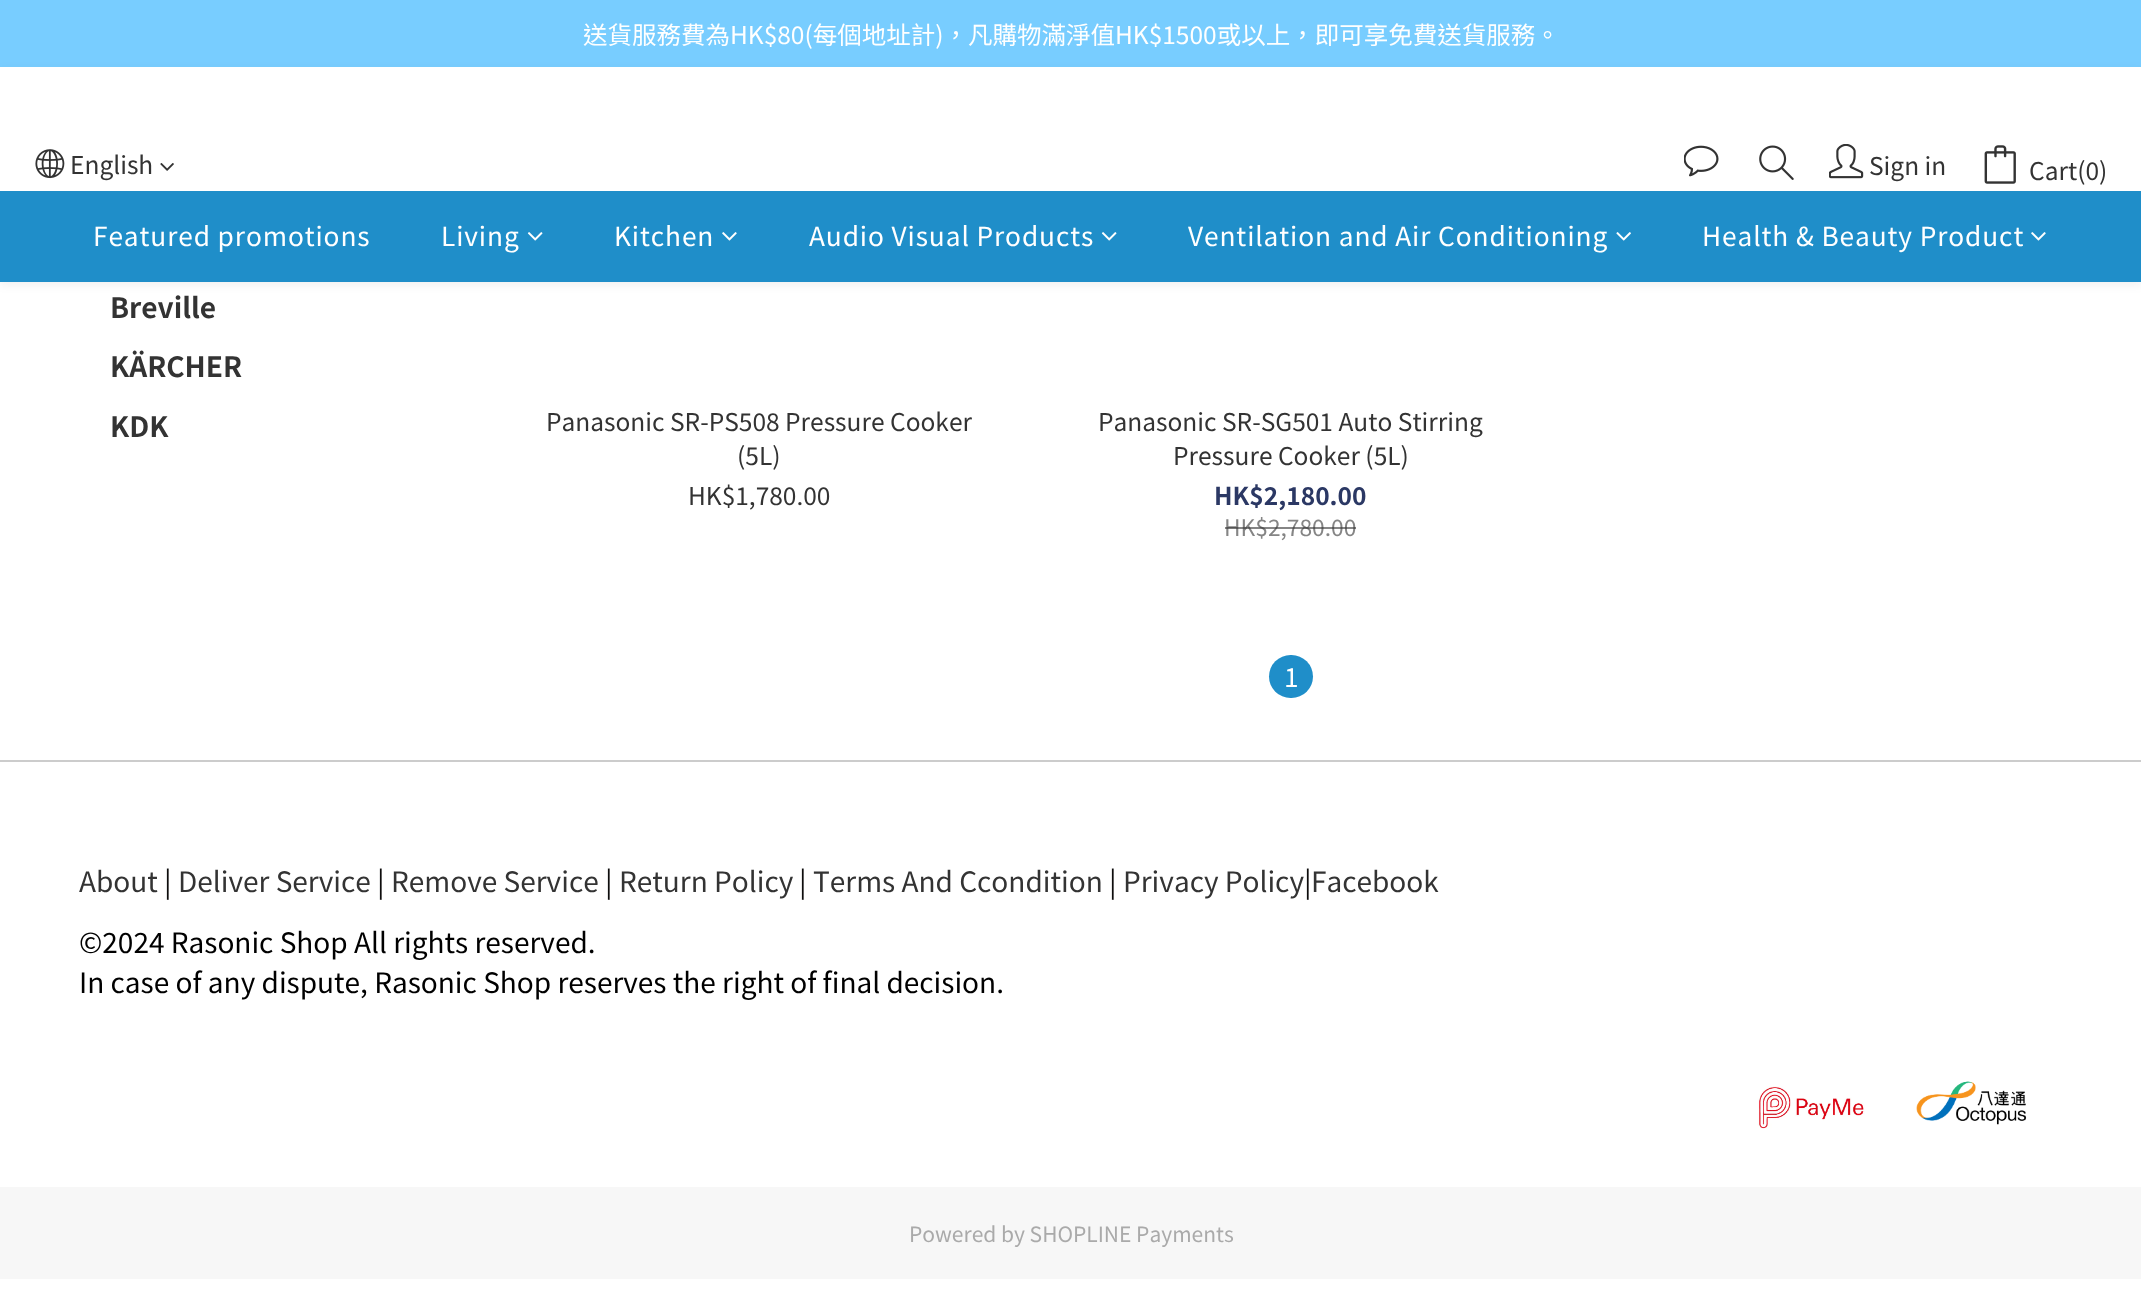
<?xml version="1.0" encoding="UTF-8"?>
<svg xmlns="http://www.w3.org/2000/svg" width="2141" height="1308">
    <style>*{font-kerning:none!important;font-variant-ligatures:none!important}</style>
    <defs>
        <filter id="blur1" x="-50%" y="-200%" width="200%" height="500%"><feGaussianBlur stdDeviation="5"/></filter>
    </defs>
    <rect width="100%" height="100%" fill="#FFFFFF"/>
    <rect x="0" y="0" width="2141" height="67" fill="#78CDFF"/>
    <text x="583" y="44" font-family="Noto Sans TC" font-size="24.5" fill="#FFFFFF">送貨服務費為HK$80(每個地址計)，凡購物滿淨值HK$1500或以上，即可享免費送貨服務。</text>
    <rect x="0" y="70" width="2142" height="215" fill="#000000" fill-opacity="0.06" filter="url(#blur1)"/>
    <rect x="0" y="67" width="2141" height="124" fill="#FFFFFF"/>
    <image x="35" y="149" width="30" height="30" href="img_01.png"/>
    <text x="70" y="174" font-family="Noto Sans TC" font-size="24.5" fill="#333333">English</text>
    <image x="160" y="163" width="14" height="8" href="img_02.png"/>
    <image x="1684" y="145" width="35" height="32" href="img_03.png"/>
    <image x="1759" y="145" width="35" height="35" href="img_04.png"/>
    <image x="1829" y="144" width="35" height="35" href="img_05.png"/>
    <text x="1869" y="175" font-family="Noto Sans TC" font-size="24.5" fill="#333333">Sign in</text>
    <image x="1984" y="145" width="32" height="39" href="img_06.png"/>
    <text x="2029" y="180" font-family="Noto Sans TC" font-size="24.5" fill="#333333">Cart(0)</text>
    <rect x="0" y="191" width="2141" height="91" fill="#1F8EC9"/>
    <text x="93" y="246" font-family="Noto Sans TC" font-size="26.25" letter-spacing="0.9" fill="#FFFFFF">Featured promotions</text>
    <text x="441" y="246" font-family="Noto Sans TC" font-size="26.25" letter-spacing="0.9" fill="#FFFFFF">Living</text>
    <image x="527" y="232" width="16" height="9" href="img_07.png"/>
    <text x="614" y="246" font-family="Noto Sans TC" font-size="26.25" letter-spacing="0.9" fill="#FFFFFF">Kitchen</text>
    <image x="722" y="232" width="15" height="9" href="img_08.png"/>
    <text x="809" y="246" font-family="Noto Sans TC" font-size="26.25" letter-spacing="0.9" fill="#FFFFFF">Audio Visual Products</text>
    <image x="1101" y="232" width="16" height="9" href="img_07.png"/>
    <text x="1188" y="246" font-family="Noto Sans TC" font-size="26.25" letter-spacing="0.9" fill="#FFFFFF">Ventilation and Air Conditioning</text>
    <image x="1616" y="232" width="15" height="9" href="img_09.png"/>
    <text x="1702" y="246" font-family="Noto Sans TC" font-size="26.25" letter-spacing="0.9" fill="#FFFFFF">Health &amp; Beauty Product</text>
    <image x="2031" y="232" width="15" height="9" href="img_08.png"/>
    <text x="110" y="318" font-family="Noto Sans TC" font-size="28" font-weight="700" fill="#333333">Breville</text>
    <text x="110" y="377" font-family="Noto Sans TC" font-size="28" font-weight="700" fill="#333333">KÄRCHER</text>
    <text x="110" y="437" font-family="Noto Sans TC" font-size="28" font-weight="700" fill="#333333">KDK</text>
    <text x="546" y="431" font-family="Noto Sans TC" font-size="24.5" fill="#333333">Panasonic SR-PS508 Pressure Cooker</text>
    <text x="737" y="465" font-family="Noto Sans TC" font-size="24.5" fill="#333333">(5L)</text>
    <text x="688" y="505" font-family="Noto Sans TC" font-size="24.5" fill="#333333">HK$1,780.00</text>
    <text x="1098" y="431" font-family="Noto Sans TC" font-size="24.5" fill="#333333">Panasonic SR-SG501 Auto Stirring</text>
    <text x="1173" y="465" font-family="Noto Sans TC" font-size="24.5" fill="#333333">Pressure Cooker (5L)</text>
    <text x="1214" y="505" font-family="Noto Sans TC" font-size="24.5" font-weight="700" fill="#2B3864">HK$2,180.00</text>
    <text x="1224" y="536" font-family="Noto Sans TC" font-size="22.75" fill="#858585">HK$2,780.00</text>
    <rect x="1225" y="527" width="131" height="2" fill="#333333" fill-opacity="0.6"/>
    <rect x="1269" y="655" width="44" height="43" rx="21.5" fill="#1F8EC9"/>
    <text x="1284" y="687" font-family="Noto Sans TC" font-size="26.25" fill="#FFFFFF">1</text>
    <rect x="0" y="760" width="2141" height="2" fill="#CCCCCC"/>
    <text x="79" y="892" font-family="Noto Sans TC" font-size="28" fill="#333333">About</text>
    <text x="164" y="892" font-family="Noto Sans TC" font-size="28" fill="#0E0D0D">|</text>
    <text x="178" y="892" font-family="Noto Sans TC" font-size="28" fill="#333333">Deliver Service</text>
    <text x="377" y="892" font-family="Noto Sans TC" font-size="28" fill="#0E0D0D">|</text>
    <text x="391" y="892" font-family="Noto Sans TC" font-size="28" fill="#333333">Remove Service</text>
    <text x="605" y="892" font-family="Noto Sans TC" font-size="28" fill="#0E0D0D">|</text>
    <text x="619" y="892" font-family="Noto Sans TC" font-size="28" fill="#333333">Return Policy</text>
    <text x="799" y="892" font-family="Noto Sans TC" font-size="28" fill="#0E0D0D">|</text>
    <text x="813" y="892" font-family="Noto Sans TC" font-size="28" fill="#333333">Terms And Ccondition</text>
    <text x="1109" y="892" font-family="Noto Sans TC" font-size="28" fill="#0E0D0D">|</text>
    <text x="1123" y="892" font-family="Noto Sans TC" font-size="28" fill="#333333">Privacy Policy</text>
    <text x="1304" y="892" font-family="Noto Sans TC" font-size="28" fill="#0E0D0D">|</text>
    <text x="1311" y="892" font-family="Noto Sans TC" font-size="28" fill="#333333">Facebook</text>
    <text font-family="Noto Sans TC" font-size="28" fill="#000000">
        <tspan x="79" y="953">©2024 Rasonic Shop All rights reserved.</tspan>
        <tspan x="79" y="993">In case of any dispute, Rasonic Shop reserves the right of final decision.</tspan>
    </text>
    <image x="1757" y="1086" width="108" height="43" href="img_10.png"/>
    <image x="1916" y="1081" width="111" height="44" href="img_11.png"/>
    <rect x="0" y="1187" width="2141" height="92" fill="#F7F7F7"/>
    <text x="909" y="1242" font-family="Noto Sans TC" font-size="21" fill="#AAAAAA">Powered by SHOPLINE Payments</text>
</svg>
